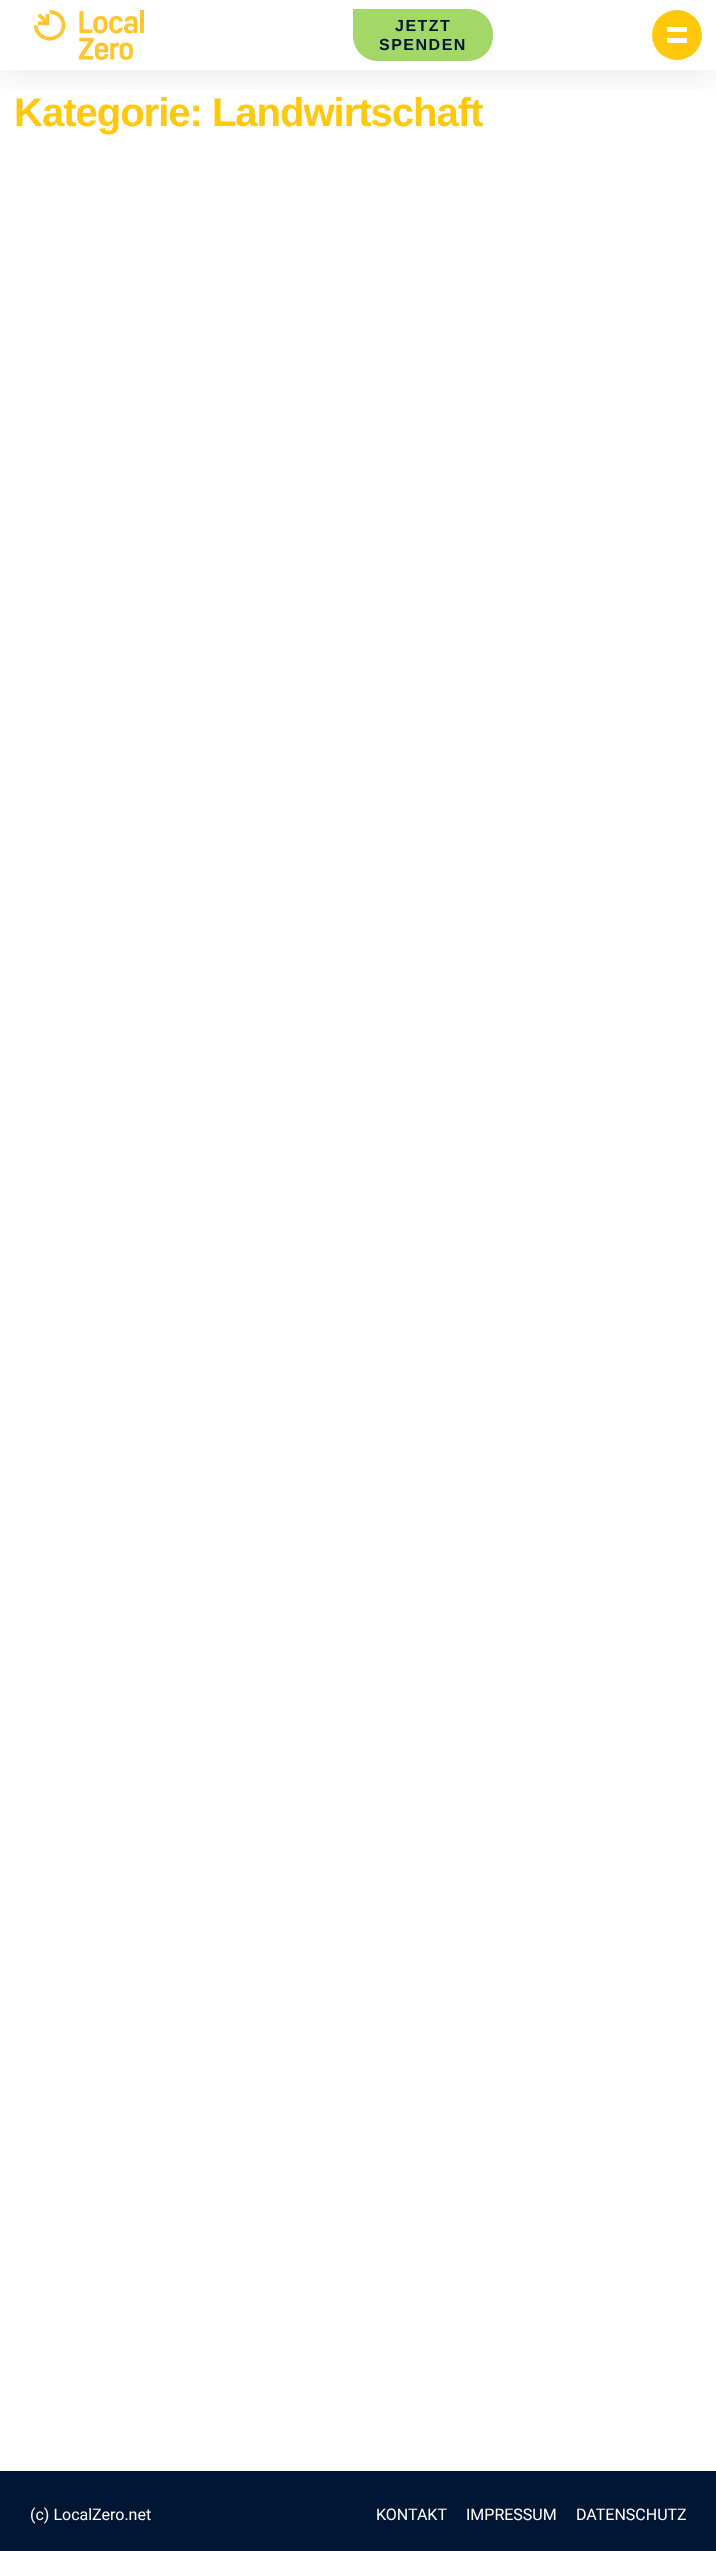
<?xml version="1.0" encoding="UTF-8"?>
<svg xmlns="http://www.w3.org/2000/svg" width="716" height="2551">
    <defs>
        <clipPath id="clip1"><rect x="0" y="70" width="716" height="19"/></clipPath>
        <filter id="blur1" x="-50%" y="-200%" width="200%" height="500%"><feGaussianBlur stdDeviation="20"/></filter>
    </defs>
    <rect width="100%" height="100%" fill="#FFFFFF"/>
    <g clip-path="url(#clip1)">
        <rect x="0" y="4" width="716" height="70" fill="#000000" fill-opacity="0.09" filter="url(#blur1)"/>
    </g>
    <image x="33" y="10" width="111" height="50" href="img_01.png"/>
    <path d="M 353 9 H 468 C 482 9 493 20 493 34 V 36 C 493 50 482 61 468 61 H 378 C 364 61 353 50 353 36 Z" fill="#A3D869"/>
    <text x="395" y="31" font-family="Liberation Sans" font-size="16" font-weight="700" letter-spacing="1.5" fill="#011633">JETZT</text>
    <text x="379" y="50" font-family="Liberation Sans" font-size="16" font-weight="700" letter-spacing="1.5" fill="#011633">SPENDEN</text>
    <circle cx="677" cy="35" r="25" fill="#FFC80C"/>
    <rect x="667" y="27" width="20" height="5" fill="#FFFFFF"/>
    <rect x="667" y="38" width="20" height="5" fill="#FFFFFF"/>
    <text x="14" y="126" font-family="Liberation Sans" font-size="40" font-weight="700" letter-spacing="-1" fill="#FFC80C">Kategorie: Landwirtschaft</text>
    <rect x="0" y="2471" width="716" height="80" fill="#011633"/>
    <text x="30" y="2520" font-family="Roboto" font-size="16" fill="#FFFFFF">(c) LocalZero.net</text>
    <text x="376" y="2520" font-family="Roboto" font-size="16" fill="#FFFFFF">KONTAKT</text>
    <text x="466" y="2520" font-family="Roboto" font-size="16" fill="#FFFFFF">IMPRESSUM</text>
    <text x="576" y="2520" font-family="Roboto" font-size="16" fill="#FFFFFF">DATENSCHUTZ</text>
</svg>
